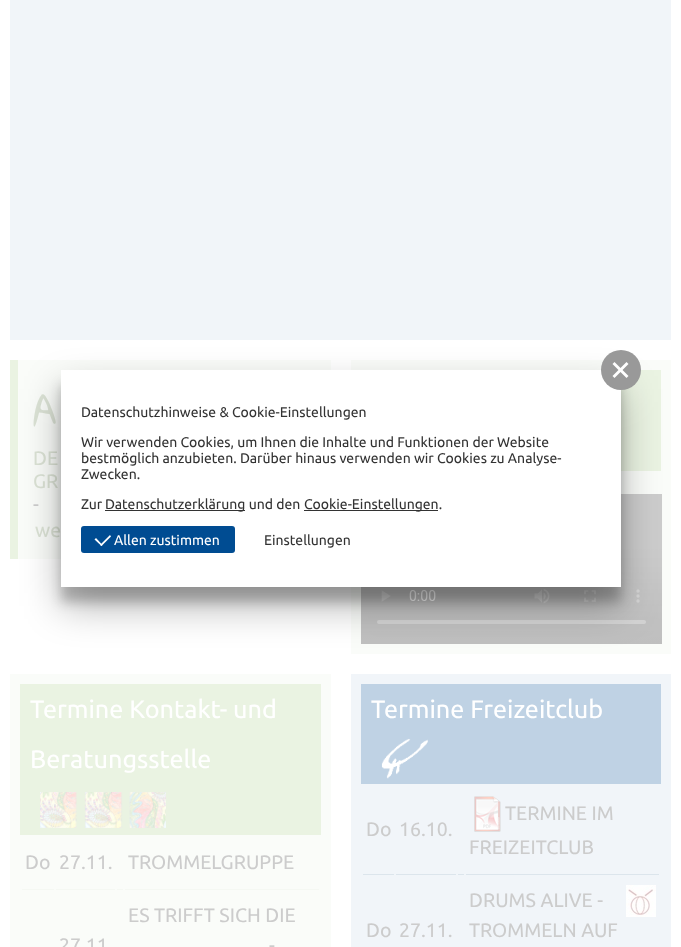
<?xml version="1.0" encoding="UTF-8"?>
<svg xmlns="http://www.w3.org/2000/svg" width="681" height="947">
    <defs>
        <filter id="blur1" x="-50%" y="-200%" width="200%" height="500%"><feGaussianBlur stdDeviation="6"/></filter>
        <filter id="blur2" x="-50%" y="-200%" width="200%" height="500%"><feGaussianBlur stdDeviation="19"/></filter>
    </defs>
    <rect width="100%" height="100%" fill="#FFFFFF"/>
    <rect x="10" y="0" width="661" height="340" fill="#F1F5F9"/>
    <rect x="18" y="360" width="313" height="199" fill="#FAFCF9"/>
    <rect x="10" y="360" width="8" height="199" fill="#EAF3E2"/>
    <text x="33" y="426" font-family="Gloria Hallelujah" font-size="36" fill="#DBE2D5">A</text>
    <text font-family="Ubuntu" font-size="19.5" fill="#DBE2D5">
        <tspan x="33" y="465">DE</tspan>
        <tspan x="33" y="488">GR</tspan>
    </text>
    <text x="33" y="511" font-family="Ubuntu" font-size="19.5" fill="#CCCCCC">-</text>
    <text x="35" y="537" font-family="Ubuntu" font-size="19.5" fill="#DBE2D5">we</text>
    <rect x="351" y="360" width="320" height="294" fill="#FAFCF9"/>
    <rect x="621" y="370" width="40" height="101" fill="#EAF3E2"/>
    <image x="361" y="494" width="301" height="150" href="img_01.png"/>
    <rect x="10" y="674" width="321" height="273" fill="#FAFCF9"/>
    <rect x="20" y="684" width="301" height="151" fill="#EAF3E2"/>
    <text font-family="Ubuntu" font-size="25.25" fill="#FFFFFF">
        <tspan x="30" y="718">Termine Kontakt- und</tspan>
        <tspan x="30" y="768">Beratungsstelle</tspan>
    </text>
    <image x="40" y="792" width="126" height="36" href="img_02.png"/>
    <text x="25" y="869" font-family="Ubuntu" font-size="19.5" fill="#CCCCCC">Do</text>
    <text x="59" y="869" font-family="Ubuntu" font-size="19.5" fill="#CCCCCC">27.11.</text>
    <text x="128" y="869" font-family="Ubuntu" font-size="19.5" fill="#CCCCCC">TROMMELGRUPPE</text>
    <rect x="22" y="889" width="32" height="1" fill="#F5F8F3"/>
    <rect x="117" y="889" width="6" height="1" fill="#F5F8F3"/>
    <rect x="56" y="889" width="59" height="1" fill="#F5F8F3"/>
    <text x="59" y="952" font-family="Ubuntu" font-size="19.5" fill="#CCCCCC">27.11</text>
    <rect x="125" y="889" width="194" height="1" fill="#F5F8F3"/>
    <text x="128" y="922" font-family="Ubuntu" font-size="19.5" fill="#CCCCCC">ES TRIFFT SICH DIE</text>
    <text x="269" y="952" font-family="Ubuntu" font-size="19.5" fill="#CCCCCC">-</text>
    <rect x="351" y="674" width="320" height="273" fill="#F1F5F9"/>
    <rect x="361" y="684" width="300" height="100" fill="#BFD2E4"/>
    <text x="371" y="718" font-family="Ubuntu" font-size="25.25" fill="#FFFFFF">Termine Freizeitclub</text>
    <image x="381" y="738" width="47" height="41" href="img_03.png"/>
    <text x="366" y="836" font-family="Ubuntu" font-size="19.5" fill="#CCCCCC">Do</text>
    <text x="399" y="836" font-family="Ubuntu" font-size="19.5" fill="#CCCCCC">16.10.</text>
    <image x="474" y="796" width="27" height="36" href="img_04.png"/>
    <text x="505" y="820" font-family="Ubuntu" font-size="19.5" fill="#CCCCCC">TERMINE IM</text>
    <text x="469" y="854" font-family="Ubuntu" font-size="19.5" fill="#CCCCCC">FREIZEITCLUB</text>
    <rect x="458" y="874" width="6" height="1" fill="#DCE5EC"/>
    <rect x="363" y="874" width="31" height="1" fill="#DCE5EC"/>
    <text x="366" y="937" font-family="Ubuntu" font-size="19.5" fill="#CCCCCC">Do</text>
    <rect x="396" y="874" width="60" height="1" fill="#DCE5EC"/>
    <text x="399" y="937" font-family="Ubuntu" font-size="19.5" fill="#CCCCCC">27.11.</text>
    <rect x="466" y="874" width="193" height="1" fill="#DCE5EC"/>
    <text x="469" y="907" font-family="Ubuntu" font-size="19.5" fill="#CCCCCC">DRUMS ALIVE -</text>
    <image x="626" y="885" width="30" height="32" href="img_05.png"/>
    <text x="469" y="937" font-family="Ubuntu" font-size="19.5" fill="#CCCCCC">TROMMELN AUF</text>
    <rect x="61" y="385" width="560" height="217" fill="#000000" fill-opacity="0.22" filter="url(#blur1)"/>
    <rect x="61" y="389" width="560" height="217" fill="#000000" fill-opacity="0.3" filter="url(#blur2)"/>
    <rect x="61" y="370" width="560" height="217" fill="#FFFFFF"/>
    <circle cx="621" cy="370" r="20" fill="#999999"/>
    <path d="M 614.5 362 L 628.5 376 L 626.5 378 L 612.5 364 Z" fill="#FFFFFF"/>
    <path d="M 612.5 376 L 626.5 362 L 628.5 364 L 614.5 378 Z" fill="#FFFFFF"/>
    <text x="81" y="417" font-family="Ubuntu" font-size="14" fill="#333333">Datenschutzhinweise &amp; Cookie-Einstellungen</text>
    <text font-family="Ubuntu" font-size="14" fill="#333333">
        <tspan x="81" y="447">Wir verwenden Cookies, um Ihnen die Inhalte und Funktionen der Website</tspan>
        <tspan x="81" y="463">bestmöglich anzubieten. Darüber hinaus verwenden wir Cookies zu Analyse-</tspan>
        <tspan x="81" y="479">Zwecken.</tspan>
    </text>
    <text x="81" y="509" font-family="Ubuntu" font-size="14" fill="#333333">Zur</text>
    <rect x="105" y="510" width="140" height="1" fill="#333333"/>
    <text x="105" y="509" font-family="Ubuntu" font-size="14" fill="#333333">Datenschutzerklärung und den</text>
    <rect x="304" y="510" width="134" height="1" fill="#333333"/>
    <text x="304" y="509" font-family="Ubuntu" font-size="14" fill="#333333">Cookie-Einstellungen.</text>
    <rect x="81" y="526" width="154" height="27" rx="3" fill="#004C92"/>
    <path d="M 110 535 L 111 536.5 L 101.5 546 L 100 545 Z" fill="#FFFFFF"/>
    <path d="M 96 538 L 102.5 545 L 101.5 546 L 94.5 539.5 Z" fill="#FFFFFF"/>
    <text x="114" y="545" font-family="Ubuntu" font-size="14" fill="#FFFFFF">Allen zustimmen</text>
    <text x="264" y="545" font-family="Ubuntu" font-size="14" fill="#333333">Einstellungen</text>
</svg>
